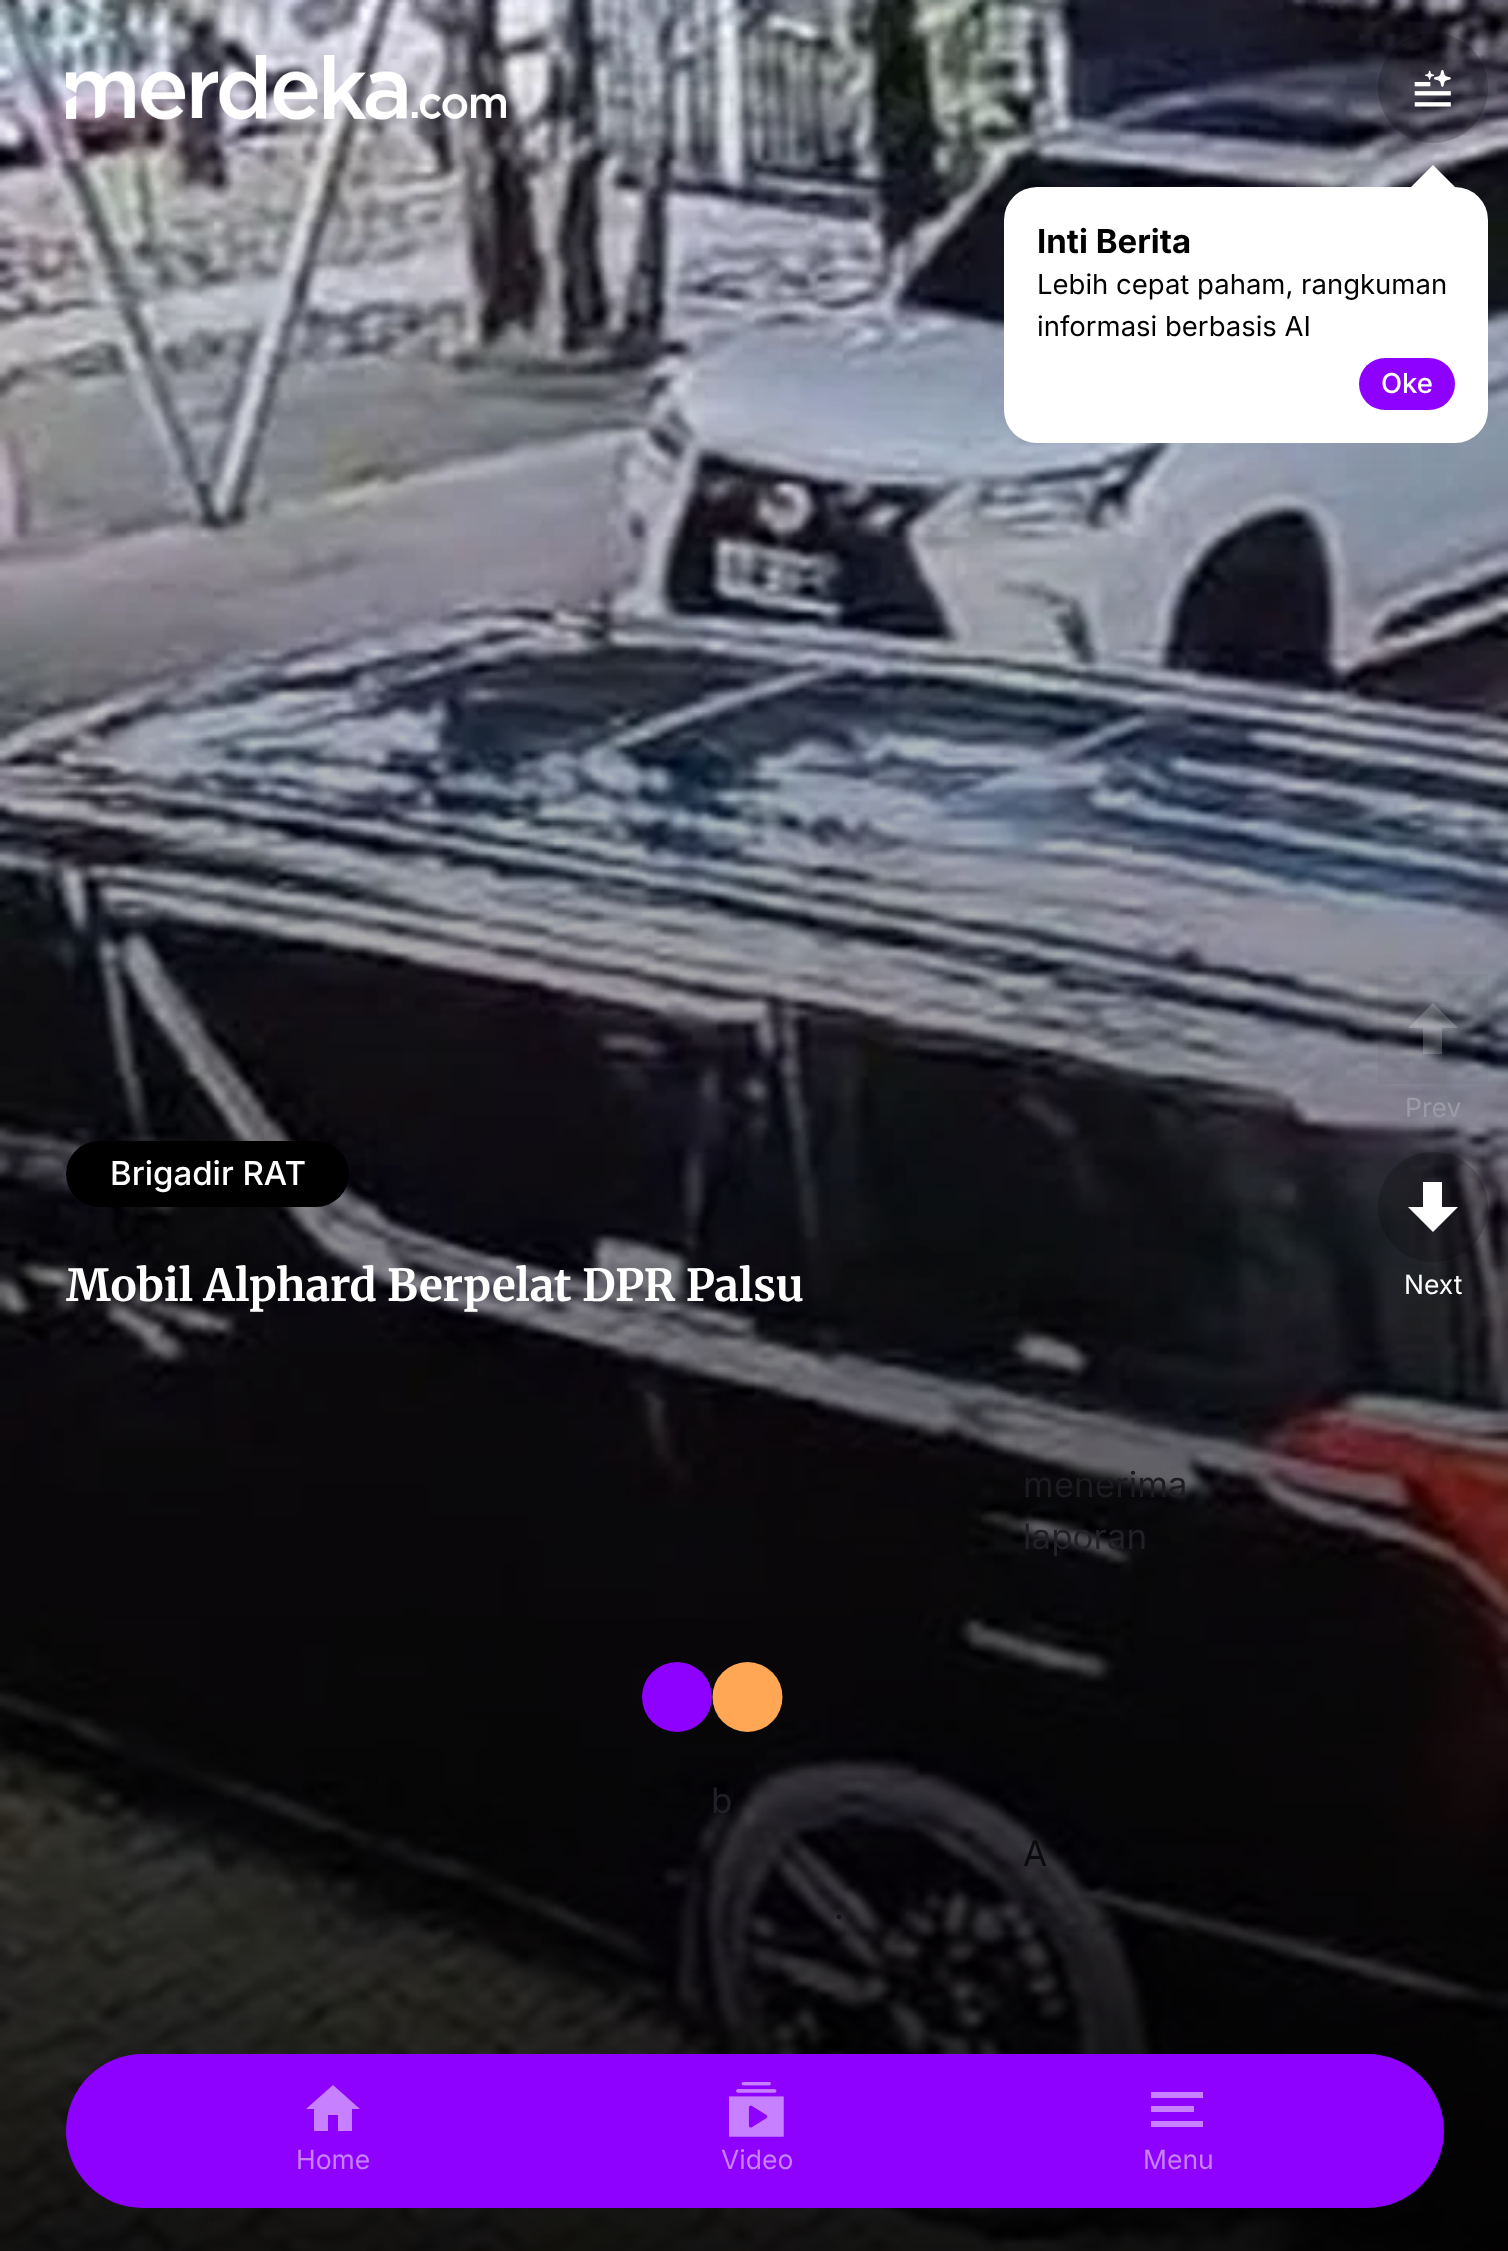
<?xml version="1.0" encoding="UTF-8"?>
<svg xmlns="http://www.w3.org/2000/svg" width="1508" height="2251">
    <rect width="100%" height="100%" fill="#FFFFFF"/>
    <image x="0" y="0" width="1508" height="2251" href="img_02.png"/>
    <circle cx="1433" cy="88" r="55" fill="#000000" fill-opacity="0.2"/>
    <image x="1414" y="70" width="37" height="37" href="img_01.png"/>
    <rect x="1004" y="187" width="484" height="256" rx="33" fill="#FFFFFF"/>
    <path d="M 1455 187 H 1411 L 1433 165 Z" fill="#FFFFFF"/>
    <text x="1037" y="253" font-family="Inter" font-size="33" font-weight="700" fill="#000000">Inti Berita</text>
    <text font-family="Inter" font-size="27.5" fill="#000000">
        <tspan x="1037" y="294">Lebih cepat paham, rangkuman</tspan>
        <tspan x="1037" y="336">informasi berbasis AI</tspan>
    </text>
    <rect x="1359" y="358" width="96" height="52" rx="26" fill="#8E01FF"/>
    <text x="1381" y="393" font-family="Inter" font-size="27.5" font-weight="500" fill="#FFFFFF">Oke</text>
    <rect x="66" y="1141" width="283" height="66" rx="33" fill="#000000"/>
    <text x="110" y="1185" font-family="Inter" font-size="33" font-weight="500" fill="#FFFFFF">Brigadir RAT</text>
    <text x="66" y="1301" font-family="Merriweather" font-size="44" font-weight="700" fill="#FFFFFF">Mobil Alphard Berpelat DPR Palsu</text>
    <circle cx="747.5" cy="1697" r="35" fill="#FFA754"/>
    <circle cx="677" cy="1697" r="35" fill="#8E01FF"/>
    <text x="711" y="1813" font-family="Inter" font-size="35" fill="#212026">b</text>
    <text x="834" y="1919" font-family="Inter" font-size="35" fill="#141218">.</text>
    <text x="1023" y="1497" font-family="Inter" font-size="35" fill="#1C1B1F">menerima</text>
    <text x="1023" y="1549" font-family="Inter" font-size="35" fill="#212026">laporan</text>
    <text x="1023" y="1866" font-family="Inter" font-size="35" fill="#0B0A0D">A</text>
    <image x="66" y="55" width="440" height="65" href="img_03.png"/>
    <rect x="1378" y="974" width="110" height="110" fill="#000000" fill-opacity="0.04"/>
    <path d="M 1423 1054 H 1442 V 1028 H 1458 L 1433 1003 L 1408 1028 H 1423 Z" fill="#FFFFFF" fill-opacity="0.2"/>
    <text x="1405" y="1117" font-family="Inter" font-size="26.5" fill="#9B9AA6">Prev</text>
    <circle cx="1433" cy="1207" r="55" fill="#000000" fill-opacity="0.2"/>
    <path d="M 1423 1182 H 1442 V 1207 H 1458 L 1433 1232 L 1408 1207 H 1423 Z" fill="#FFFFFF"/>
    <text x="1404" y="1294" font-family="Inter" font-size="26.5" fill="#FFFFFF">Next</text>
    <rect x="66" y="2054" width="1378" height="154" rx="77" fill="#8E01FF"/>
    <path d="M 328 2131 V 2115 H 338 V 2131 H 352 V 2109 H 360 L 333 2085 L 306 2109 H 314 V 2131 Z" fill="#C780FF"/>
    <text x="296" y="2169" font-family="Inter" font-size="26.5" fill="#C780FF">Home</text>
    <image x="729" y="2082" width="55" height="55" href="img_04.png"/>
    <text x="721" y="2169" font-family="Inter" font-size="26.5" fill="#C780FF">Video</text>
    <path d="M 1151 2092 H 1203 V 2098 H 1151 Z M 1151 2112 V 2106 H 1194 V 2112 Z M 1151 2127 V 2121 H 1203 V 2127 Z" fill="#C780FF"/>
    <text x="1143" y="2169" font-family="Inter" font-size="26.5" fill="#C780FF">Menu</text>
</svg>
